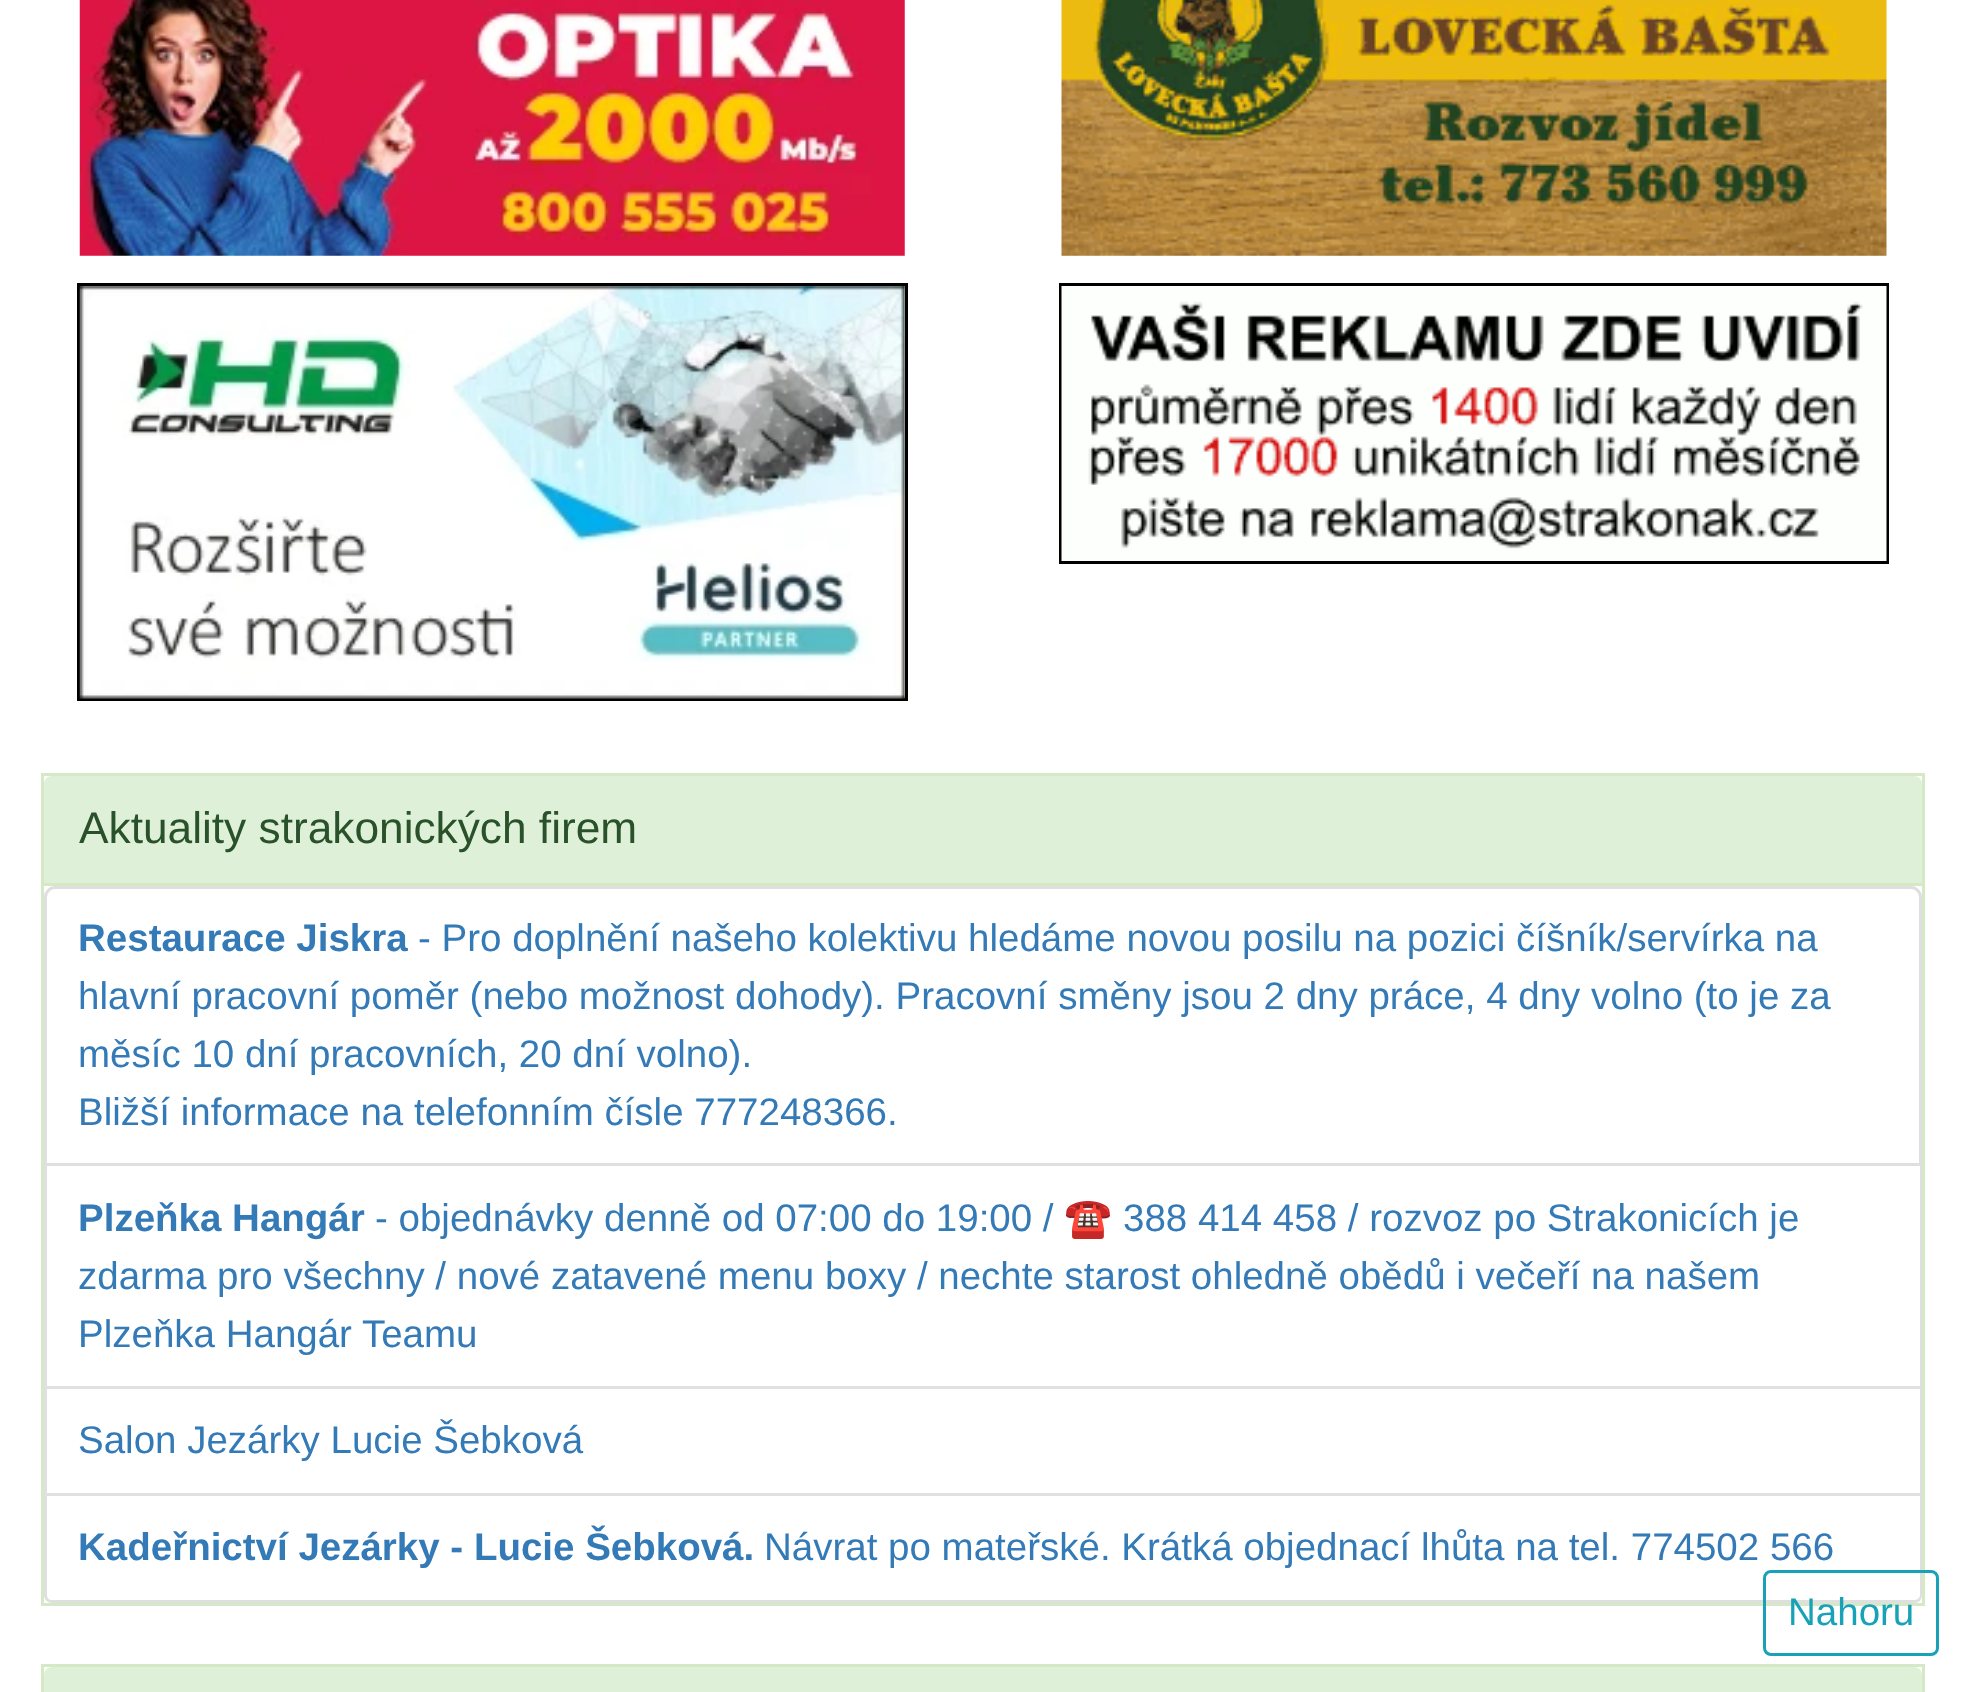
<?xml version="1.0" encoding="UTF-8"?>
<svg xmlns="http://www.w3.org/2000/svg" width="1964" height="1692">
    <rect width="100%" height="100%" fill="#FFFFFF"/>
    <image x="79" y="0" width="826" height="256" href="img_01.png"/>
    <rect x="78.5" y="284.5" width="828" height="415" fill="none" stroke="#000000" stroke-width="3"/>
    <image x="79" y="286" width="826" height="413" href="img_02.png"/>
    <image x="1061" y="0" width="826" height="256" href="img_03.png"/>
    <rect x="1060.5" y="284.5" width="827" height="278" fill="none" stroke="#000000" stroke-width="3"/>
    <image x="1061" y="286" width="826" height="275" href="img_04.png"/>
    <rect x="42.5" y="774.5" width="1881" height="830" fill="none" stroke="#D6E9C6" stroke-width="3"/>
    <path d="M 52 776 H 1914 C 1918.5 776 1922 779.5 1922 784 V 886 H 44 V 784 C 44 779.5 47.5 776 52 776 Z" fill="#DFF0D8"/>
    <rect x="44" y="883" width="1878" height="3" fill="#D6E9C6"/>
    <text x="79" y="843" font-family="Liberation Sans" font-size="44.25" fill="#29522A">Aktuality strakonických firem</text>
    <path d="M 55 887.5 H 1911 C 1916 887.5 1920.5 892 1920.5 897 V 1164.5 H 45.5 V 897 C 45.5 892 50 887.5 55 887.5 Z" fill="none" stroke="#DFDFDF" stroke-width="3"/>
    <text x="78" y="951" font-family="Liberation Sans" font-size="38.5" font-weight="700" fill="#337AB7">Restaurace Jiskra</text>
    <text x="418" y="951" font-family="Liberation Sans" font-size="38.5" fill="#337AB7">- Pro doplnění našeho kolektivu hledáme novou posilu na pozici číšník/servírka na</text>
    <text font-family="Liberation Sans" font-size="38.5" fill="#337AB7">
        <tspan x="78" y="1009">hlavní pracovní poměr (nebo možnost dohody). Pracovní směny jsou 2 dny práce, 4 dny volno (to je za</tspan>
        <tspan x="78" y="1067">měsíc 10 dní pracovních, 20 dní volno).</tspan>
        <tspan x="78" y="1125">Bližší informace na telefonním čísle 777248366.</tspan>
    </text>
    <path d="M 1922 1166 V 1389 L 1920 1386 V 1166 Z" fill="#DFDFDF"/>
    <path d="M 1922 1389 H 44 L 47 1386 H 1920 Z" fill="#000000" fill-opacity="0.12"/>
    <path d="M 44 1389 V 1166 H 47 V 1386 Z" fill="#000000" fill-opacity="0.12"/>
    <text x="78" y="1231" font-family="Liberation Sans" font-size="38.5" font-weight="700" fill="#337AB7">Plzeňka Hangár</text>
    <text x="375" y="1231" font-family="Liberation Sans" font-size="38.5" fill="#337AB7">- objednávky denně od 07:00 do 19:00 /</text>
    <text x="1064" y="1231" font-family="Noto Color Emoji" font-size="38.5" fill="#337AB7">☎️</text>
    <text x="1123" y="1231" font-family="Liberation Sans" font-size="38.5" fill="#337AB7">388 414 458 / rozvoz po Strakonicích je</text>
    <text font-family="Liberation Sans" font-size="38.5" fill="#337AB7">
        <tspan x="78" y="1289">zdarma pro všechny / nové zatavené menu boxy / nechte starost ohledně obědů i večeří na našem</tspan>
        <tspan x="78" y="1347">Plzeňka Hangár Teamu</tspan>
    </text>
    <path d="M 1922 1389 V 1496 L 1920 1493 V 1389 Z" fill="#DFDFDF"/>
    <path d="M 1922 1496 H 44 L 47 1493 H 1920 Z" fill="#000000" fill-opacity="0.12"/>
    <path d="M 44 1496 V 1389 H 47 V 1493 Z" fill="#000000" fill-opacity="0.12"/>
    <text x="78" y="1453" font-family="Liberation Sans" font-size="38.5" fill="#337AB7">Salon Jezárky Lucie Šebková</text>
    <path d="M 44 1496 H 1922 V 1595 C 1922 1600 1919 1603 1914 1603 H 52 C 48 1603 44 1600 44 1595 Z M 47 1496 H 1920 V 1595 C 1920 1598 1917 1600 1914 1600 H 52 C 49 1600 47 1598 47 1595 Z" fill="#DFDFDF" fill-rule="evenodd"/>
    <text x="78" y="1560" font-family="Liberation Sans" font-size="38.5" font-weight="700" fill="#337AB7">Kadeřnictví Jezárky - Lucie Šebková.</text>
    <text x="764" y="1560" font-family="Liberation Sans" font-size="38.5" fill="#337AB7">Návrat po mateřské. Krátká objednací lhůta na tel. 774502 566</text>
    <rect x="42.5" y="1665.5" width="1881" height="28" fill="none" stroke="#D6E9C6" stroke-width="3"/>
    <path d="M 52 1667 H 1914 C 1918.5 1667 1922 1670.5 1922 1675 V 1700 H 44 V 1675 C 44 1670.5 47.5 1667 52 1667 Z" fill="#DFF0D8"/>
    <rect x="1764.5" y="1571.5" width="173" height="83" rx="6.5" fill="none" stroke="#17A2B8" stroke-width="3"/>
    <text x="1788" y="1625" font-family="Liberation Sans" font-size="38.5" fill="#17A2B8">Nahoru</text>
</svg>
